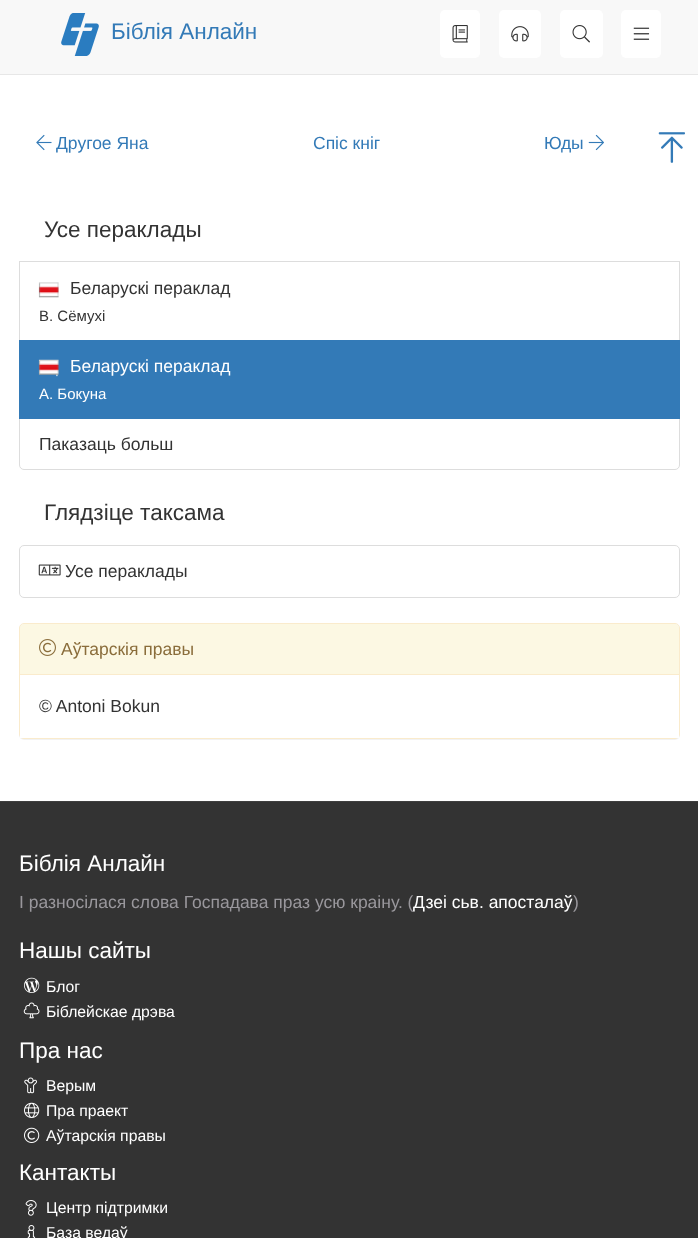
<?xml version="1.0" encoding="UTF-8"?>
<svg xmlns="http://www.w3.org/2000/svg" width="698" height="1238">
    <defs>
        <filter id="blur1" x="-50%" y="-200%" width="200%" height="500%"><feGaussianBlur stdDeviation="0.5"/></filter>
    </defs>
    <rect width="100%" height="100%" fill="#FFFFFF"/>
    <rect x="0" y="0" width="698" height="74" fill="#F8F8F8"/>
    <rect x="0" y="74" width="698" height="1" fill="#E7E7E7"/>
    <image x="61" y="13" width="38" height="43" href="img_01.png"/>
    <text x="111" y="39" font-family="Liberation Sans" font-size="22.5" fill="#337AB7">Біблія Анлайн</text>
    <rect x="440" y="10" width="40" height="48" rx="5" fill="#FFFFFF"/>
    <image x="452" y="25" width="16" height="18" href="img_02.png"/>
    <rect x="499" y="10" width="42" height="48" rx="5" fill="#FFFFFF"/>
    <image x="511" y="26" width="18" height="16" href="img_03.png"/>
    <rect x="560" y="10" width="43" height="48" rx="5" fill="#FFFFFF"/>
    <image x="572" y="25" width="18" height="18" href="img_04.png"/>
    <rect x="621" y="10" width="40" height="48" rx="5" fill="#FFFFFF"/>
    <image x="633" y="27" width="17" height="13" href="img_05.png"/>
    <image x="36" y="134" width="16" height="17" href="img_06.png"/>
    <text x="56" y="149" font-family="Liberation Sans" font-size="17.5" fill="#337AB7">Другое Яна</text>
    <text x="313" y="149" font-family="Liberation Sans" font-size="17.5" fill="#337AB7">Спіс кніг</text>
    <text x="544" y="149" font-family="Liberation Sans" font-size="17.5" fill="#337AB7">Юды</text>
    <image x="588" y="134" width="16" height="17" href="img_07.png"/>
    <image x="658" y="132" width="27" height="31" href="img_08.png"/>
    <text x="44" y="237" font-family="Liberation Sans" font-size="22.5" fill="#333333">Усе пераклады</text>
    <rect x="19.5" y="261.5" width="660" height="79" fill="none" stroke="#DDDDDD"/>
    <image x="38" y="282" width="21" height="16" href="img_09.png"/>
    <text x="70" y="294" font-family="Liberation Sans" font-size="17.5" fill="#333333">Беларускі пераклад</text>
    <text x="39" y="321" font-family="Liberation Sans" font-size="15" fill="#333333">В. Сёмухі</text>
    <path d="M 19.5 418.5 H 679.5 V 465 C 679.5 467.5 677.5 469.5 675 469.5 H 24 C 21.5 469.5 19.5 467.5 19.5 465 Z" fill="none" stroke="#DDDDDD"/>
    <rect x="19" y="340" width="661" height="79" fill="#337AB7"/>
    <image x="38" y="359" width="21" height="18" href="img_10.png"/>
    <text x="70" y="372" font-family="Liberation Sans" font-size="17.5" fill="#FFFFFF">Беларускі пераклад</text>
    <text x="39" y="399" font-family="Liberation Sans" font-size="15" fill="#FFFFFF">А. Бокуна</text>
    <text x="39" y="450" font-family="Liberation Sans" font-size="17.5" fill="#333333">Паказаць больш</text>
    <text x="44" y="520" font-family="Liberation Sans" font-size="22.5" fill="#333333">Глядзіце таксама</text>
    <rect x="19.5" y="545.5" width="660" height="52" rx="4.5" fill="none" stroke="#DDDDDD"/>
    <image x="38" y="564" width="23" height="12" href="img_11.png"/>
    <text x="65" y="577" font-family="Liberation Sans" font-size="17.5" fill="#333333">Усе пераклады</text>
    <rect x="19" y="624" width="661" height="116" rx="5" fill="#000000" fill-opacity="0.05" filter="url(#blur1)"/>
    <rect x="19.5" y="623.5" width="660" height="115" rx="4.5" fill="none" stroke="#FAEBCC"/>
    <path d="M 24 624 H 675 C 677 624 679 626 679 628 V 675 H 20 V 628 C 20 626 22 624 24 624 Z" fill="#FCF8E3"/>
    <rect x="20" y="674" width="659" height="1" fill="#FAEBCC"/>
    <image x="39" y="639" width="17" height="17" href="img_12.png"/>
    <text x="61" y="655" font-family="Liberation Sans" font-size="17.5" fill="#8A6D3B">Аўтарскія правы</text>
    <rect x="20" y="675" width="659" height="63" fill="#FFFFFF"/>
    <text x="39" y="712" font-family="Liberation Sans" font-size="17.5" fill="#333333">© Antoni Bokun</text>
    <rect x="0" y="802" width="698" height="436" fill="#333333"/>
    <rect x="0" y="801" width="698" height="1" fill="#3F3F3F"/>
    <text x="19" y="871" font-family="Liberation Sans" font-size="22.5" fill="#FFFFFF">Біблія Анлайн</text>
    <text x="19" y="908" font-family="Liberation Sans" font-size="17.5" fill="#99979C">І разносілася слова Госпадава праз усю краіну. (</text>
    <text x="413" y="908" font-family="Liberation Sans" font-size="17.5" fill="#FFFFFF">Дзеі сьв. апосталаў</text>
    <text x="573" y="908" font-family="Liberation Sans" font-size="17.5" fill="#99979C">)</text>
    <text x="19" y="958" font-family="Liberation Sans" font-size="22.5" fill="#FFFFFF">Нашы сайты</text>
    <image x="24" y="977" width="16" height="16" href="img_13.png"/>
    <text x="46" y="992" font-family="Liberation Sans" font-size="15.75" fill="#FFFFFF">Блог</text>
    <image x="23" y="1002" width="17" height="17" href="img_14.png"/>
    <text x="46" y="1017" font-family="Liberation Sans" font-size="15.75" fill="#FFFFFF">Біблейскае дрэва</text>
    <text x="19" y="1058" font-family="Liberation Sans" font-size="22.5" fill="#FFFFFF">Пра нас</text>
    <image x="24" y="1077" width="13" height="17" href="img_15.png"/>
    <text x="46" y="1091" font-family="Liberation Sans" font-size="15.75" fill="#FFFFFF">Верым</text>
    <image x="24" y="1102" width="16" height="16" href="img_16.png"/>
    <text x="46" y="1116" font-family="Liberation Sans" font-size="15.75" fill="#FFFFFF">Пра праект</text>
    <image x="24" y="1127" width="16" height="16" href="img_17.png"/>
    <text x="46" y="1141" font-family="Liberation Sans" font-size="15.75" fill="#FFFFFF">Аўтарскія правы</text>
    <text x="19" y="1180" font-family="Liberation Sans" font-size="22.5" fill="#FFFFFF">Кантакты</text>
    <image x="25" y="1200" width="12" height="16" href="img_18.png"/>
    <text x="46" y="1213" font-family="Liberation Sans" font-size="15.75" fill="#FFFFFF">Центр підтримки</text>
    <image x="27" y="1225" width="9" height="13" href="img_19.png"/>
    <text x="46" y="1238" font-family="Liberation Sans" font-size="15.75" fill="#FFFFFF">База ведаў</text>
</svg>
